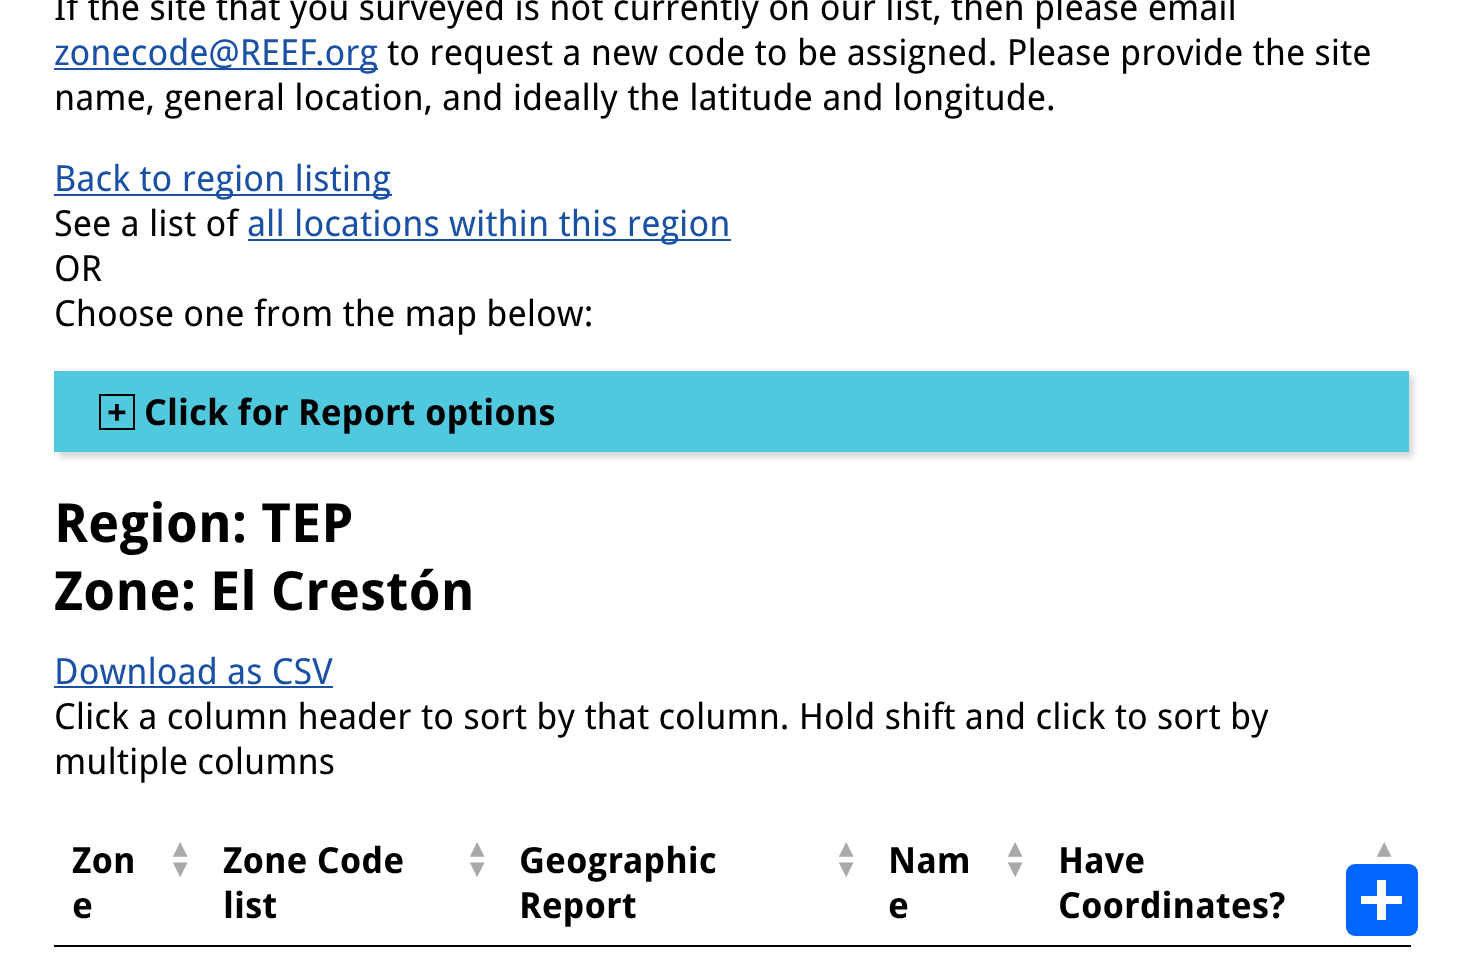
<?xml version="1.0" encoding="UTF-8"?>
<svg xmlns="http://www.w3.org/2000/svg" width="1461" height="970">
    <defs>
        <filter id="blur1" x="-50%" y="-200%" width="200%" height="500%"><feGaussianBlur stdDeviation="3.5"/></filter>
    </defs>
    <rect width="100%" height="100%" fill="#FFFFFF"/>
    <text x="54" y="20" font-family="Droid Sans" font-size="36" fill="#000000">If the site that you surveyed is not currently on our list, then please email</text>
    <rect x="54" y="68" width="324" height="2" fill="#1B51A4"/>
    <text x="54" y="65" font-family="Droid Sans" font-size="36" fill="#1B51A4">zonecode@REEF.org</text>
    <text x="387" y="65" font-family="Droid Sans" font-size="36" fill="#000000">to request a new code to be assigned. Please provide the site</text>
    <text x="54" y="110" font-family="Droid Sans" font-size="36" fill="#000000">name, general location, and ideally the latitude and longitude.</text>
    <rect x="54" y="194" width="338" height="2" fill="#1B51A4"/>
    <text x="54" y="191" font-family="Droid Sans" font-size="36" fill="#1B51A4">Back to region listing</text>
    <text x="54" y="236" font-family="Droid Sans" font-size="36" fill="#000000">See a list of</text>
    <rect x="248" y="239" width="483" height="2" fill="#1B51A4"/>
    <text x="247" y="236" font-family="Droid Sans" font-size="36" fill="#1B51A4">all locations within this region</text>
    <text font-family="Droid Sans" font-size="36" fill="#000000">
        <tspan x="54" y="281">OR</tspan>
        <tspan x="54" y="326">Choose one from the map below:</tspan>
    </text>
    <rect x="59" y="376" width="1354" height="81" fill="#D3D3D3" filter="url(#blur1)"/>
    <rect x="54" y="371" width="1355" height="81" fill="#50C8DD"/>
    <rect x="100" y="395" width="34" height="34" fill="none" stroke="#000000" stroke-width="2"/>
    <text x="107" y="425" font-family="Droid Sans" font-size="36" font-weight="700" fill="#000000">+</text>
    <text x="144" y="425" font-family="Droid Sans" font-size="36" font-weight="700" fill="#000000">Click for Report options</text>
    <text font-family="Droid Sans" font-size="54" font-weight="700" fill="#000000">
        <tspan x="54" y="542">Region: TEP</tspan>
        <tspan x="54" y="610">Zone: El Crestón</tspan>
    </text>
    <text x="54" y="684" font-family="Droid Sans" font-size="36" fill="#1B51A4">Download as CSV</text>
    <rect x="54" y="686" width="279" height="2" fill="#1B51A4"/>
    <text font-family="Droid Sans" font-size="36" fill="#000000">
        <tspan x="54" y="729">Click a column header to sort by that column. Hold shift and click to sort by</tspan>
        <tspan x="54" y="774">multiple columns</tspan>
    </text>
    <rect x="54" y="945" width="1357" height="2" fill="#000000"/>
    <text x="72" y="873" font-family="Droid Sans" font-size="36" font-weight="700" fill="#000000">Zon</text>
    <text font-family="DejaVu Sans" font-size="27" font-weight="700" fill="#A9A9A9">
        <tspan x="173" y="857">▴</tspan>
        <tspan x="173" y="877">▾</tspan>
    </text>
    <text x="72" y="918" font-family="Droid Sans" font-size="36" font-weight="700" fill="#000000">e</text>
    <text x="223" y="873" font-family="Droid Sans" font-size="36" font-weight="700" fill="#000000">Zone Code</text>
    <text font-family="DejaVu Sans" font-size="27" font-weight="700" fill="#A9A9A9">
        <tspan x="470" y="857">▴</tspan>
        <tspan x="470" y="877">▾</tspan>
    </text>
    <text x="223" y="918" font-family="Droid Sans" font-size="36" font-weight="700" fill="#000000">list</text>
    <text x="519" y="873" font-family="Droid Sans" font-size="36" font-weight="700" fill="#000000">Geographic</text>
    <text font-family="DejaVu Sans" font-size="27" font-weight="700" fill="#A9A9A9">
        <tspan x="839" y="857">▴</tspan>
        <tspan x="839" y="877">▾</tspan>
    </text>
    <text x="519" y="918" font-family="Droid Sans" font-size="36" font-weight="700" fill="#000000">Report</text>
    <text x="888" y="873" font-family="Droid Sans" font-size="36" font-weight="700" fill="#000000">Nam</text>
    <text font-family="DejaVu Sans" font-size="27" font-weight="700" fill="#A9A9A9">
        <tspan x="1008" y="857">▴</tspan>
        <tspan x="1008" y="877">▾</tspan>
    </text>
    <text x="888" y="918" font-family="Droid Sans" font-size="36" font-weight="700" fill="#000000">e</text>
    <text x="1058" y="873" font-family="Droid Sans" font-size="36" font-weight="700" fill="#000000">Have</text>
    <text x="1377" y="857" font-family="DejaVu Sans" font-size="27" font-weight="700" fill="#A9A9A9">▴</text>
    <text x="1058" y="918" font-family="Droid Sans" font-size="36" font-weight="700" fill="#000000">Coordinates?</text>
    <rect x="1346" y="864" width="72" height="72" rx="9" fill="#0166FF"/>
    <rect x="1377" y="880" width="9" height="40" fill="#FFFFFF"/>
    <rect x="1361" y="896" width="41" height="8" fill="#FFFFFF"/>
</svg>
